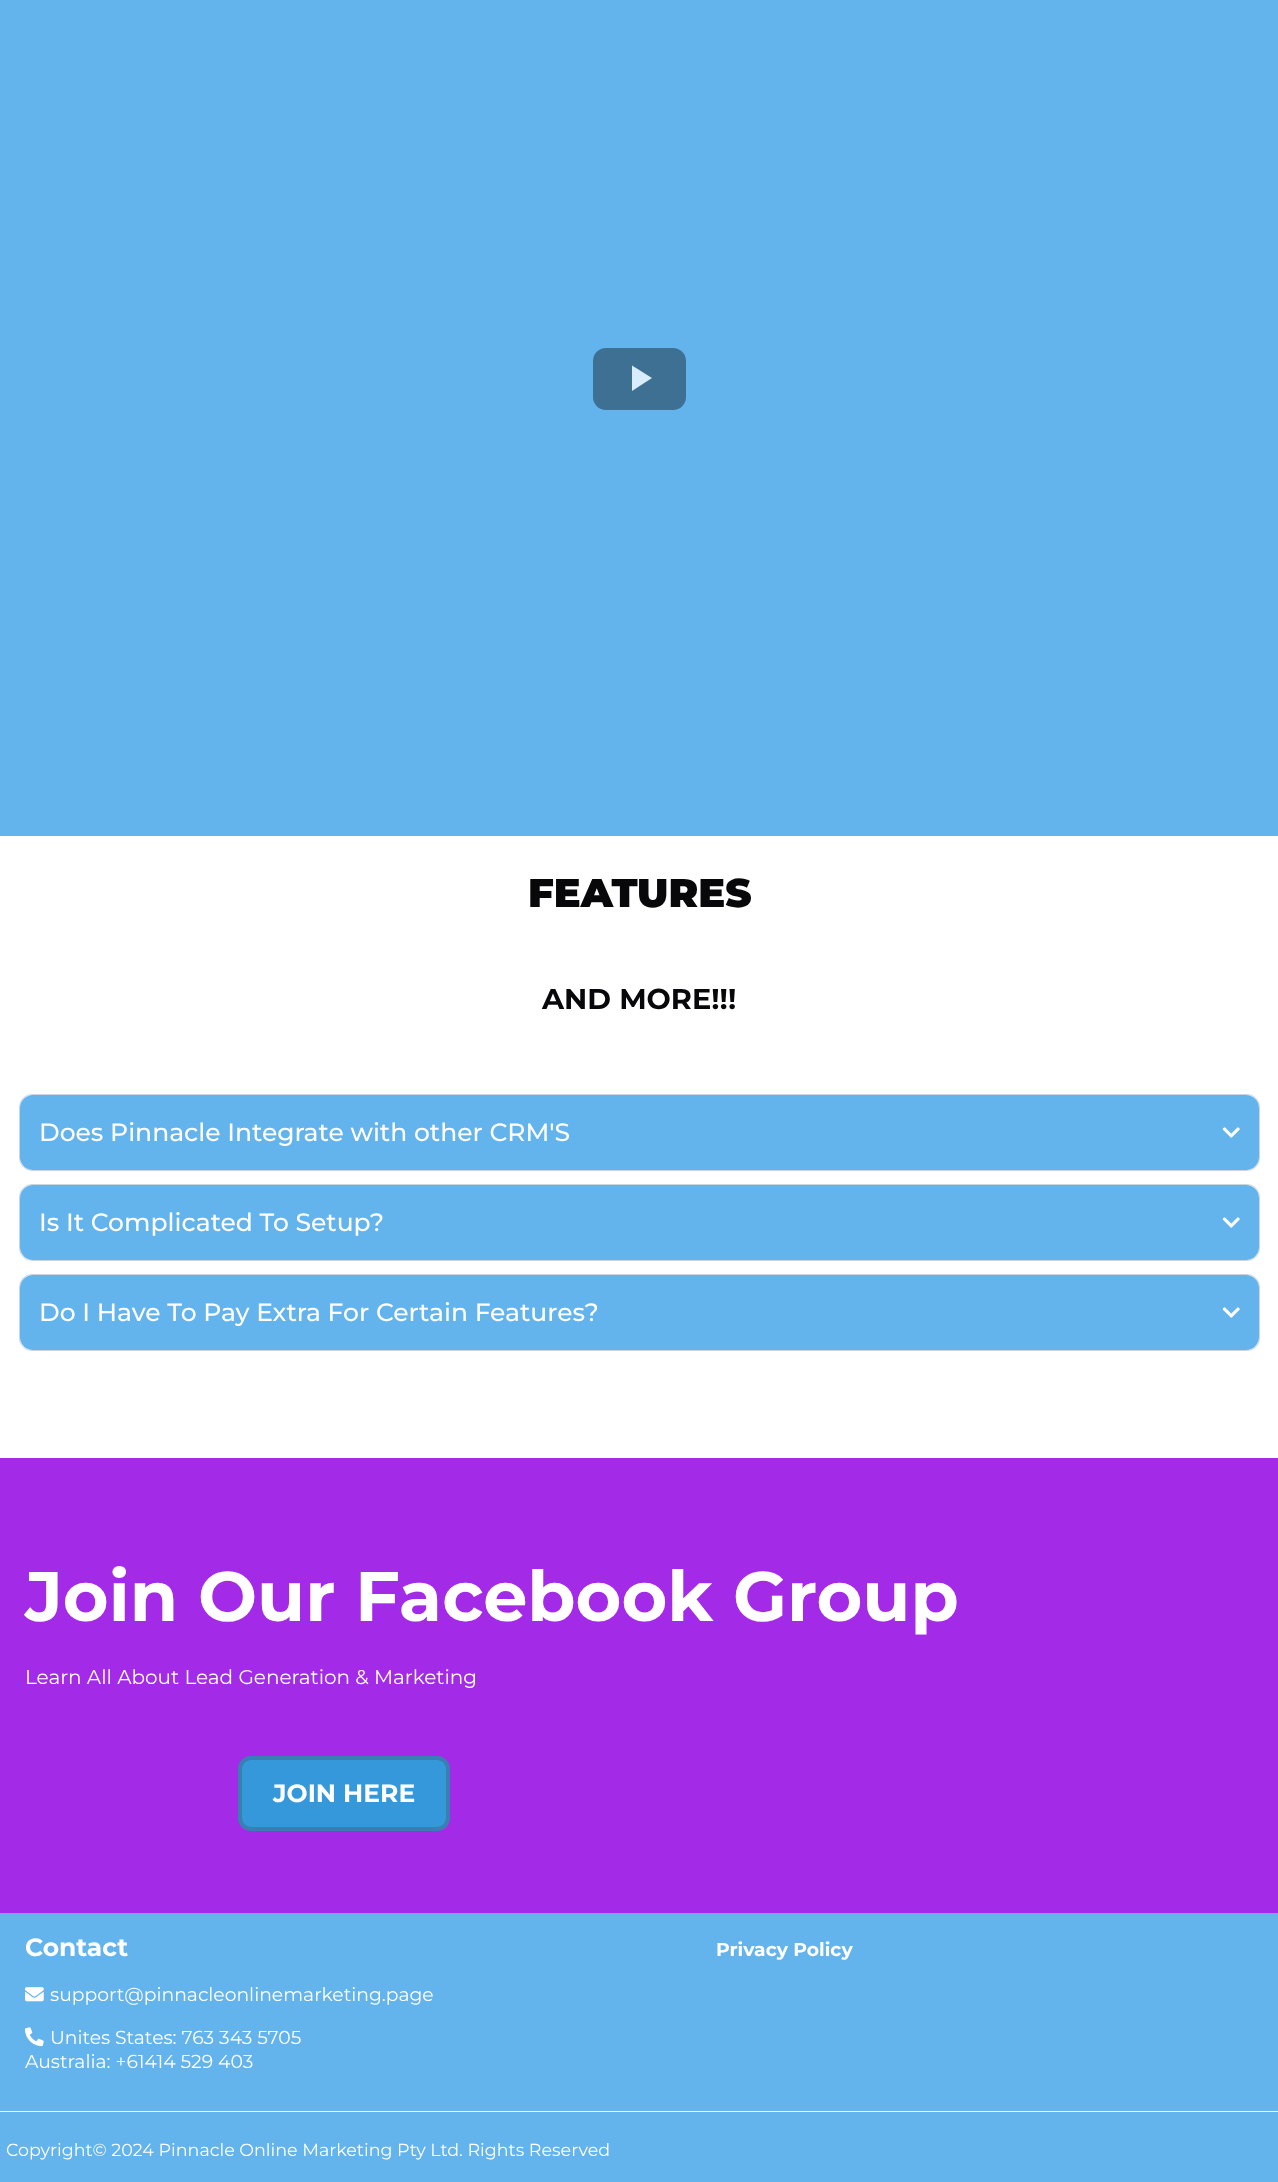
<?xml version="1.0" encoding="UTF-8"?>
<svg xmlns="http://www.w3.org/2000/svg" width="1278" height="2182">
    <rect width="100%" height="100%" fill="#FFFFFF"/>
    <rect x="0" y="0" width="1278" height="836" fill="#63B3ED"/>
    <rect x="593" y="348" width="93" height="62" rx="13" fill="#3E7094"/>
    <path d="M 632 365.5 V 391 L 652 378 Z" fill="#D8ECFB"/>
    <text x="528" y="907" font-family="Montserrat" font-size="40" font-weight="900" fill="#08080A">FEATURES</text>
    <text x="542" y="1009" font-family="Montserrat" font-size="28.75" font-weight="700" fill="#08080A">AND MORE!!!</text>
    <rect x="19.5" y="1094.5" width="1240" height="76" rx="12.5" fill="none" stroke="#CBD5E0"/>
    <rect x="20" y="1095" width="1239" height="75" rx="13" fill="#63B3ED"/>
    <text x="39" y="1141" font-family="Montserrat" font-size="25" font-weight="500" fill="#FFFFFF">Does Pinnacle Integrate with other CRM'S</text>
    <image x="1222" y="1127" width="18" height="11" href="img_01.png"/>
    <rect x="19.5" y="1184.5" width="1240" height="76" rx="12.5" fill="none" stroke="#CBD5E0"/>
    <rect x="20" y="1185" width="1239" height="75" rx="13" fill="#63B3ED"/>
    <text x="39" y="1231" font-family="Montserrat" font-size="25" font-weight="500" fill="#FFFFFF">Is It Complicated To Setup?</text>
    <image x="1222" y="1217" width="18" height="11" href="img_01.png"/>
    <rect x="19.5" y="1274.5" width="1240" height="76" rx="12.5" fill="none" stroke="#CBD5E0"/>
    <rect x="20" y="1275" width="1239" height="75" rx="13" fill="#63B3ED"/>
    <text x="39" y="1321" font-family="Montserrat" font-size="25" font-weight="500" fill="#FFFFFF">Do I Have To Pay Extra For Certain Features?</text>
    <image x="1222" y="1307" width="18" height="11" href="img_01.png"/>
    <rect x="0" y="1458" width="1278" height="455" fill="#A32BE8"/>
    <text x="25" y="1621" font-family="Montserrat" font-size="70" font-weight="700" fill="#FFFFFF">Join Our Facebook Group</text>
    <text x="25" y="1684" font-family="Montserrat" font-size="20" fill="#FFFFFF">Learn All About Lead Generation &amp; Marketing</text>
    <rect x="240" y="1758" width="208" height="71" rx="11" fill="#3498DB" stroke="#3780B1" stroke-width="4"/>
    <text x="273" y="1802" font-family="Montserrat" font-size="25" font-weight="700" fill="#FFFFFF">JOIN HERE</text>
    <rect x="0" y="1913" width="1278" height="269" fill="#63B3ED"/>
    <text x="25" y="1956" font-family="Montserrat" font-size="25" font-weight="700" fill="#FFFFFF">Contact</text>
    <image x="25" y="1987" width="19" height="15" href="img_02.png"/>
    <text x="50" y="2001" font-family="Montserrat" font-size="18.75" fill="#FFFFFF">support@pinnacleonlinemarketing.page</text>
    <image x="25" y="2027" width="19" height="20" href="img_03.png"/>
    <text x="50" y="2044" font-family="Montserrat" font-size="18.75" fill="#FFFFFF">Unites States: 763 343 5705</text>
    <text x="25" y="2068" font-family="Montserrat" font-size="18.75" fill="#FFFFFF">Australia: +61414 529 403</text>
    <text x="716" y="1956" font-family="Montserrat" font-size="18.75" font-weight="700" fill="#FFFFFF">Privacy Policy</text>
    <rect x="0" y="2111" width="1278" height="1" fill="#FFFFFF"/>
    <text x="6" y="2156" font-family="Montserrat" font-size="17.5" fill="#FFFFFF">Copyright© 2024 Pinnacle Online Marketing Pty Ltd. Rights Reserved</text>
</svg>
